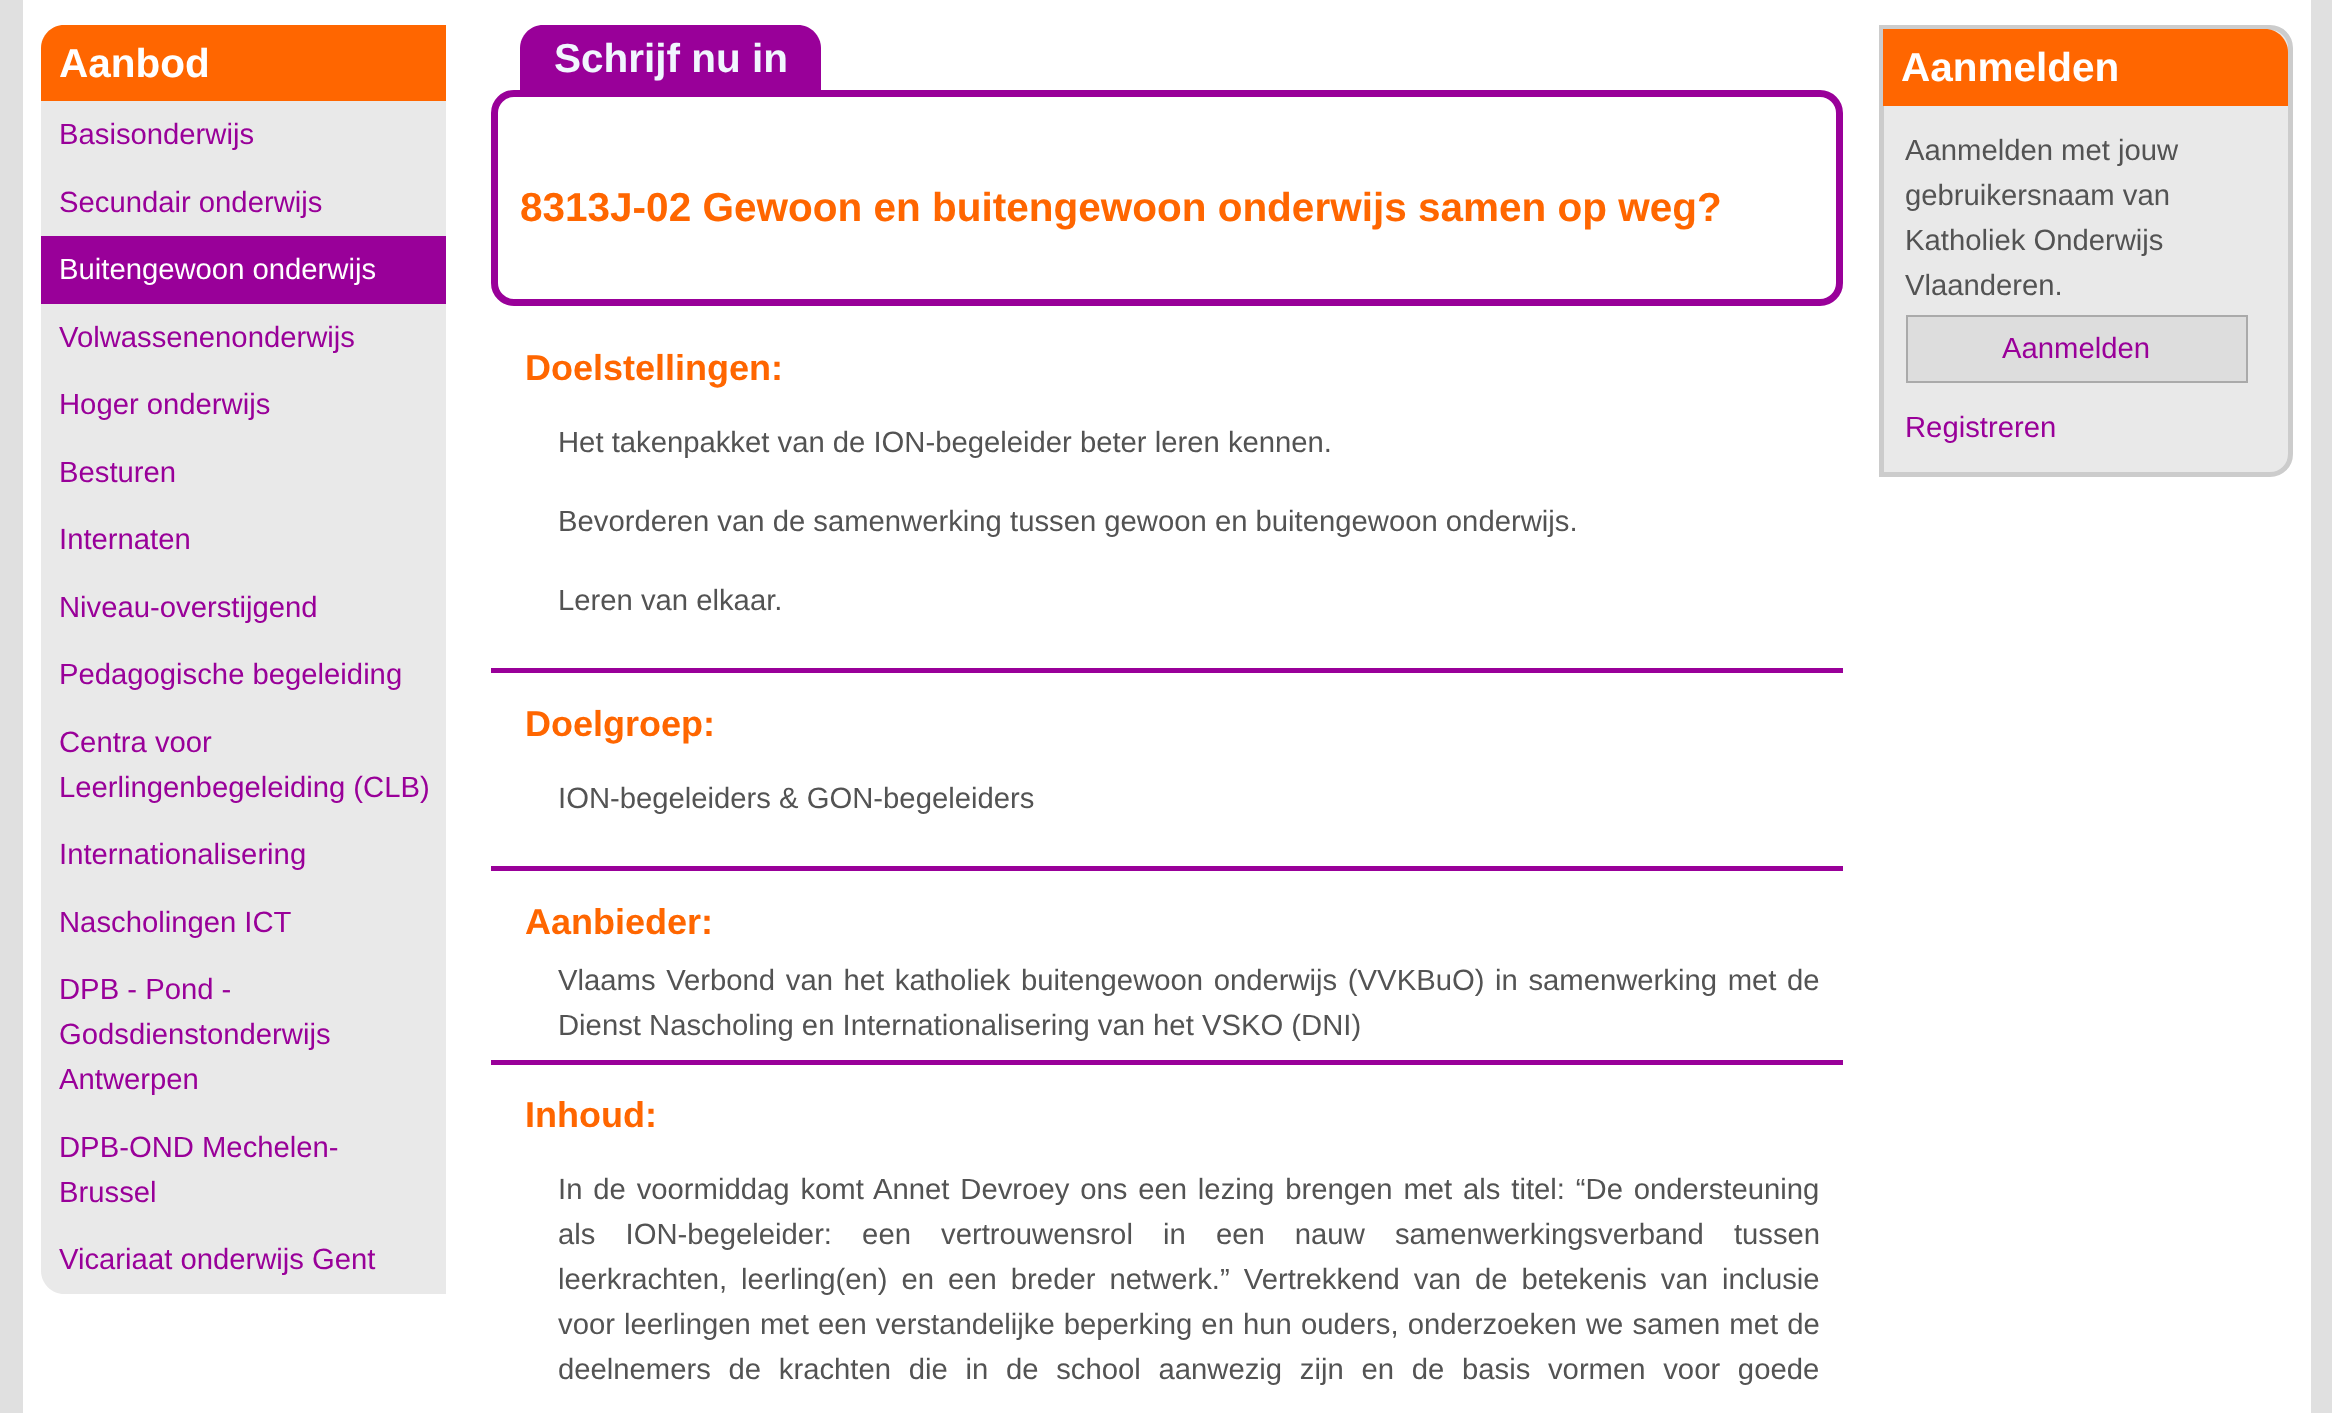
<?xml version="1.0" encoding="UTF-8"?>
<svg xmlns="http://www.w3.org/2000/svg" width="2332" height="1413">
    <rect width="100%" height="100%" fill="#E0E0E0"/>
    <rect x="23" y="0" width="2288" height="1413" fill="#FFFFFF"/>
    <path d="M 64 25 H 446 V 1294 H 64 C 51.5 1294 41 1283.5 41 1271 V 48 C 41 35.5 51.5 25 64 25 Z" fill="#E9E9E9"/>
    <path d="M 64 25 H 446 V 101 H 41 V 48 C 41 35.5 51.5 25 64 25 Z" fill="#FF6600"/>
    <text x="59" y="77" font-family="Liberation Sans" font-size="40.5" font-weight="700" fill="#FFFFFF">Aanbod</text>
    <text x="59" y="144" font-family="Liberation Sans" font-size="29.25" fill="#990099">Basisonderwijs</text>
    <text x="59" y="212" font-family="Liberation Sans" font-size="29.25" fill="#990099">Secundair onderwijs</text>
    <rect x="41" y="236" width="405" height="68" fill="#990099"/>
    <text x="59" y="279" font-family="Liberation Sans" font-size="29.25" fill="#FFFFFF">Buitengewoon onderwijs</text>
    <text x="59" y="347" font-family="Liberation Sans" font-size="29.25" fill="#990099">Volwassenenonderwijs</text>
    <text x="59" y="414" font-family="Liberation Sans" font-size="29.25" fill="#990099">Hoger onderwijs</text>
    <text x="59" y="482" font-family="Liberation Sans" font-size="29.25" fill="#990099">Besturen</text>
    <text x="59" y="549" font-family="Liberation Sans" font-size="29.25" fill="#990099">Internaten</text>
    <text x="59" y="617" font-family="Liberation Sans" font-size="29.25" fill="#990099">Niveau-overstijgend</text>
    <text x="59" y="684" font-family="Liberation Sans" font-size="29.25" fill="#990099">Pedagogische begeleiding</text>
    <text font-family="Liberation Sans" font-size="29.25" fill="#990099">
        <tspan x="59" y="752">Centra voor</tspan>
        <tspan x="59" y="797">Leerlingenbegeleiding (CLB)</tspan>
    </text>
    <text x="59" y="864" font-family="Liberation Sans" font-size="29.25" fill="#990099">Internationalisering</text>
    <text x="59" y="932" font-family="Liberation Sans" font-size="29.25" fill="#990099">Nascholingen ICT</text>
    <text font-family="Liberation Sans" font-size="29.25" fill="#990099">
        <tspan x="59" y="999">DPB - Pond -</tspan>
        <tspan x="59" y="1044">Godsdienstonderwijs</tspan>
        <tspan x="59" y="1089">Antwerpen</tspan>
    </text>
    <text font-family="Liberation Sans" font-size="29.25" fill="#990099">
        <tspan x="59" y="1157">DPB-OND Mechelen-</tspan>
        <tspan x="59" y="1202">Brussel</tspan>
    </text>
    <text x="59" y="1269" font-family="Liberation Sans" font-size="29.25" fill="#990099">Vicariaat onderwijs Gent</text>
    <rect x="494.5" y="93.5" width="1345" height="209" rx="19.5" fill="none" stroke="#990099" stroke-width="7"/>
    <path d="M 543 25 H 798 C 810.5 25 821 35.5 821 48 V 92 H 520 V 48 C 520 35.5 530.5 25 543 25 Z" fill="#990099"/>
    <text x="554" y="72" font-family="Liberation Sans" font-size="40.5" font-weight="700" fill="#F1F6FE">Schrijf nu in</text>
    <text x="520" y="221" font-family="Liberation Sans" font-size="40.5" font-weight="700" fill="#FF6600">8313J-02 Gewoon en buitengewoon onderwijs samen op weg?</text>
    <text x="525" y="380" font-family="Liberation Sans" font-size="36" font-weight="700" fill="#FF6600">Doelstellingen:</text>
    <rect x="491" y="668" width="1352" height="5" fill="#990099"/>
    <text x="558" y="452" font-family="Liberation Sans" font-size="29.25" fill="#535353">Het takenpakket van de ION-begeleider beter leren kennen.</text>
    <text x="558" y="531" font-family="Liberation Sans" font-size="29.25" fill="#535353">Bevorderen van de samenwerking tussen gewoon en buitengewoon onderwijs.</text>
    <text x="558" y="610" font-family="Liberation Sans" font-size="29.25" fill="#535353">Leren van elkaar.</text>
    <text x="525" y="736" font-family="Liberation Sans" font-size="36" font-weight="700" fill="#FF6600">Doelgroep:</text>
    <rect x="491" y="866" width="1352" height="5" fill="#990099"/>
    <text x="558" y="808" font-family="Liberation Sans" font-size="29.25" fill="#535353">ION-begeleiders &amp; GON-begeleiders</text>
    <text x="525" y="934" font-family="Liberation Sans" font-size="36" font-weight="700" fill="#FF6600">Aanbieder:</text>
    <rect x="491" y="1060" width="1352" height="5" fill="#990099"/>
    <text font-family="Liberation Sans" font-size="29.25" fill="#535353">
        <tspan x="558" y="990" word-spacing="2.5">Vlaams Verbond van het katholiek buitengewoon onderwijs (VVKBuO) in samenwerking met de</tspan>
        <tspan x="558" y="1035">Dienst Nascholing en Internationalisering van het VSKO (DNI)</tspan>
    </text>
    <text x="525" y="1127" font-family="Liberation Sans" font-size="36" font-weight="700" fill="#FF6600">Inhoud:</text>
    <text font-family="Liberation Sans" font-size="29.25" fill="#535353">
        <tspan x="558" y="1199" word-spacing="2.75">In de voormiddag komt Annet Devroey ons een lezing brengen met als titel: “De ondersteuning</tspan>
        <tspan x="558" y="1244" word-spacing="22">als ION-begeleider: een vertrouwensrol in een nauw samenwerkingsverband tussen</tspan>
        <tspan x="558" y="1289" word-spacing="5.9">leerkrachten, leerling(en) en een breder netwerk.” Vertrekkend van de betekenis van inclusie</tspan>
        <tspan x="558" y="1334" word-spacing="1">voor leerlingen met een verstandelijke beperking en hun ouders, onderzoeken we samen met de</tspan>
        <tspan x="558" y="1379" word-spacing="9.6">deelnemers de krachten die in de school aanwezig zijn en de basis vormen voor goede</tspan>
    </text>
    <path d="M 1881.5 27.5 H 2270 C 2281.5 27.5 2290.5 36.5 2290.5 48 V 454 C 2290.5 465.5 2281.5 474.5 2270 474.5 H 1881.5 Z" fill="#E9E9E9" stroke="#CCCCCC" stroke-width="5"/>
    <path d="M 1883 29 H 2265 C 2277.5 29 2288 39.5 2288 52 V 106 H 1883 Z" fill="#FF6600"/>
    <text x="1901" y="81" font-family="Liberation Sans" font-size="40.5" font-weight="700" fill="#FFFFFF">Aanmelden</text>
    <text font-family="Liberation Sans" font-size="29.25" fill="#535353">
        <tspan x="1905" y="160">Aanmelden met jouw</tspan>
        <tspan x="1905" y="205">gebruikersnaam van</tspan>
        <tspan x="1905" y="250">Katholiek Onderwijs</tspan>
        <tspan x="1905" y="295">Vlaanderen.</tspan>
    </text>
    <rect x="1907" y="316" width="340" height="66" fill="#DDDDDD" stroke="#AAAAAA" stroke-width="2"/>
    <text x="2002" y="358" font-family="Liberation Sans" font-size="29.25" fill="#990099">Aanmelden</text>
    <text x="1905" y="437" font-family="Liberation Sans" font-size="29.25" fill="#990099">Registreren</text>
</svg>
